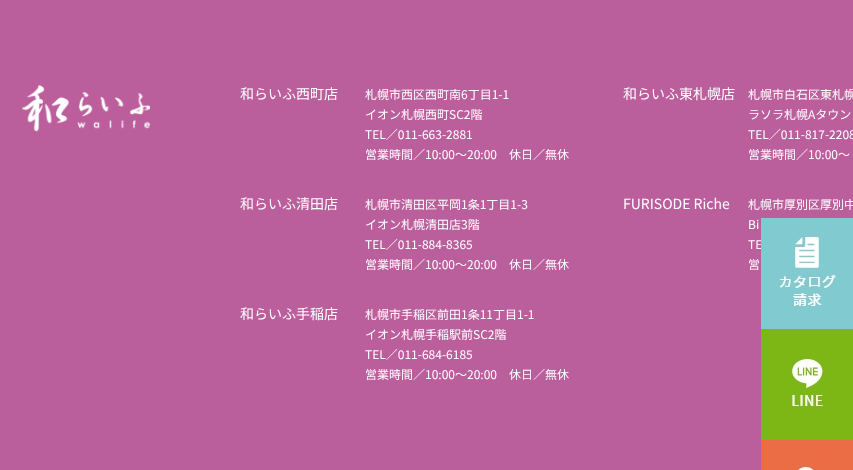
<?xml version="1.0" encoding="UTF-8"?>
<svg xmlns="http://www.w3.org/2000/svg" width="853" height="470">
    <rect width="100%" height="100%" fill="#BB5E9C"/>
    <image x="22" y="85" width="128" height="47" href="img_01.png"/>
    <text x="240" y="99" font-family="Noto Sans JP" font-size="14" font-weight="100" fill="#FFFFFF">和らいふ西町店</text>
    <text font-family="Noto Sans JP" font-size="12" font-weight="100" fill="#FFFFFF">
        <tspan x="365" y="99">札幌市西区西町南6丁目1-1</tspan>
        <tspan x="365" y="119">イオン札幌西町SC2階</tspan>
        <tspan x="365" y="139">TEL／011-663-2881</tspan>
        <tspan x="365" y="159">営業時間／10:00～20:00　休日／無休</tspan>
    </text>
    <text x="240" y="209" font-family="Noto Sans JP" font-size="14" font-weight="100" fill="#FFFFFF">和らいふ清田店</text>
    <text font-family="Noto Sans JP" font-size="12" font-weight="100" fill="#FFFFFF">
        <tspan x="365" y="209">札幌市清田区平岡1条1丁目1-3</tspan>
        <tspan x="365" y="229">イオン札幌清田店3階</tspan>
        <tspan x="365" y="249">TEL／011-884-8365</tspan>
        <tspan x="365" y="269">営業時間／10:00～20:00　休日／無休</tspan>
    </text>
    <text x="240" y="319" font-family="Noto Sans JP" font-size="14" font-weight="100" fill="#FFFFFF">和らいふ手稲店</text>
    <text font-family="Noto Sans JP" font-size="12" font-weight="100" fill="#FFFFFF">
        <tspan x="365" y="319">札幌市手稲区前田1条11丁目1-1</tspan>
        <tspan x="365" y="339">イオン札幌手稲駅前SC2階</tspan>
        <tspan x="365" y="359">TEL／011-684-6185</tspan>
        <tspan x="365" y="379">営業時間／10:00～20:00　休日／無休</tspan>
    </text>
    <text x="623" y="99" font-family="Noto Sans JP" font-size="14" font-weight="100" fill="#FFFFFF">和らいふ東札幌店</text>
    <text font-family="Noto Sans JP" font-size="12" font-weight="100" fill="#FFFFFF">
        <tspan x="748" y="99">札幌市白石区東札幌</tspan>
        <tspan x="748" y="119">ラソラ札幌Aタウン</tspan>
        <tspan x="748" y="139">TEL／011-817-2208</tspan>
        <tspan x="748" y="159">営業時間／10:00～</tspan>
    </text>
    <text x="623" y="209" font-family="Noto Sans JP" font-size="14" font-weight="100" fill="#FFFFFF">FURISODE Riche</text>
    <text font-family="Noto Sans JP" font-size="12" font-weight="100" fill="#FFFFFF">
        <tspan x="748" y="209">札幌市厚別区厚別中</tspan>
        <tspan x="748" y="229">Bi</tspan>
        <tspan x="748" y="249">TE</tspan>
        <tspan x="748" y="269">営</tspan>
    </text>
    <image x="761" y="218" width="92" height="111" href="img_02.png"/>
    <image x="761" y="329" width="92" height="111" href="img_03.png"/>
    <image x="761" y="440" width="92" height="30" href="img_04.png"/>
</svg>
